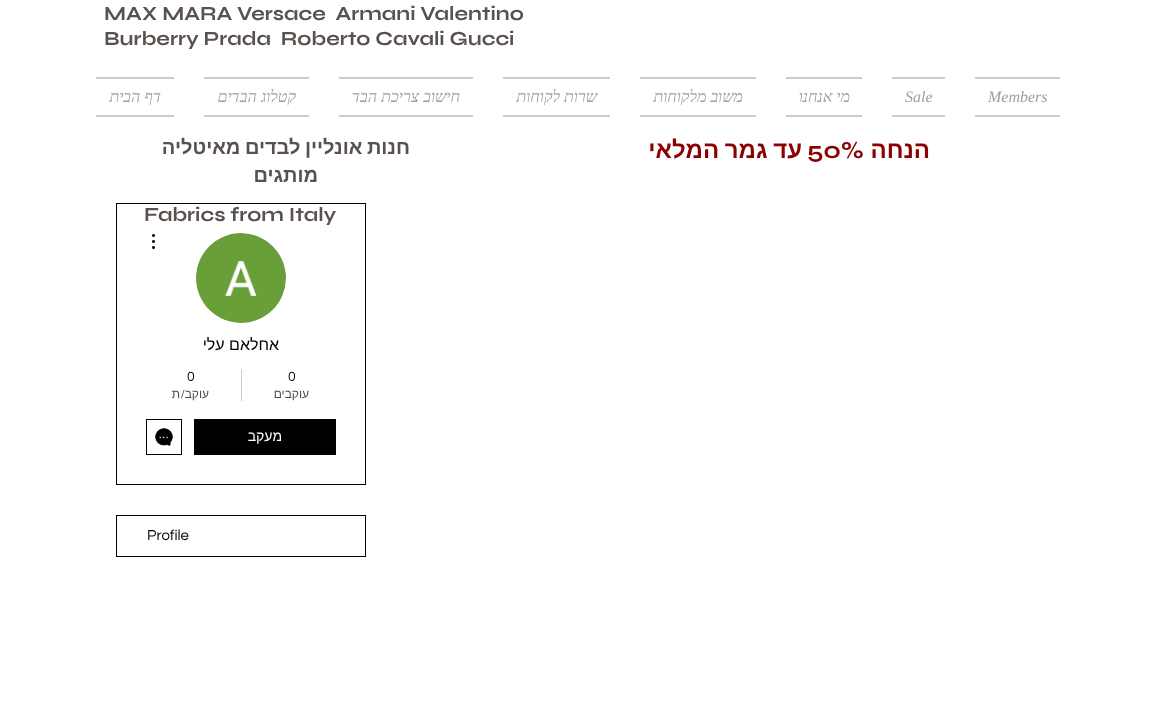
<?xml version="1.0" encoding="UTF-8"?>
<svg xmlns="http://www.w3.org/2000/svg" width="1172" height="714">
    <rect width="100%" height="100%" fill="#FFFFFF"/>
    <text font-family="Syne" font-size="20" font-weight="700" fill="#59514D" xml:space="preserve"><tspan x="104" y="20">MAX MARA Versace  Armani Valentino</tspan><tspan x="104" y="45">Burberry Prada  Roberto Cavali Gucci</tspan></text>
    <rect x="975" y="77" width="85" height="2" fill="#CCCCCC"/>
    <rect x="975" y="115" width="85" height="2" fill="#CCCCCC"/>
    <text x="988" y="102" font-family="Liberation Serif" font-size="16" font-style="italic" fill="#9E9E9E">Members</text>
    <rect x="892" y="77" width="53" height="2" fill="#CCCCCC"/>
    <rect x="892" y="115" width="53" height="2" fill="#CCCCCC"/>
    <text x="905" y="102" font-family="Liberation Serif" font-size="16" font-style="italic" fill="#9E9E9E">Sale</text>
    <rect x="786" y="77" width="76" height="2" fill="#CCCCCC"/>
    <rect x="786" y="115" width="76" height="2" fill="#CCCCCC"/>
    <text x="850" y="102" font-family="Liberation Serif" font-size="16" font-style="italic" direction="rtl" fill="#9E9E9E">מי אנחנו</text>
    <rect x="640" y="77" width="116" height="2" fill="#CCCCCC"/>
    <rect x="640" y="115" width="116" height="2" fill="#CCCCCC"/>
    <text x="743" y="102" font-family="Liberation Serif" font-size="16" font-style="italic" direction="rtl" fill="#9E9E9E">משוב מלקוחות</text>
    <rect x="503" y="77" width="107" height="2" fill="#CCCCCC"/>
    <rect x="503" y="115" width="107" height="2" fill="#CCCCCC"/>
    <text x="597" y="102" font-family="Liberation Serif" font-size="16" font-style="italic" direction="rtl" fill="#9E9E9E">שרות לקוחות</text>
    <rect x="339" y="77" width="134" height="2" fill="#CCCCCC"/>
    <rect x="339" y="115" width="134" height="2" fill="#CCCCCC"/>
    <text x="460" y="102" font-family="Liberation Serif" font-size="16" font-style="italic" direction="rtl" fill="#9E9E9E">חישוב צריכת הבד</text>
    <rect x="204" y="77" width="105" height="2" fill="#CCCCCC"/>
    <rect x="204" y="115" width="105" height="2" fill="#CCCCCC"/>
    <text x="296" y="102" font-family="Liberation Serif" font-size="16" font-style="italic" direction="rtl" fill="#9E9E9E">קטלוג הבדים</text>
    <rect x="96" y="77" width="78" height="2" fill="#CCCCCC"/>
    <rect x="96" y="115" width="78" height="2" fill="#CCCCCC"/>
    <text x="161" y="102" font-family="Liberation Serif" font-size="16" font-style="italic" direction="rtl" fill="#9E9E9E">דף הבית</text>
    <text x="930" y="158" font-family="Liberation Sans" font-size="24" font-weight="700" direction="rtl" fill="#8B0000">הנחה</text>
    <text x="807" y="158" font-family="Syne" font-size="24" font-weight="700" fill="#8B0000">50%</text>
    <text x="802" y="158" word-spacing="-1" font-family="Liberation Sans" font-size="24" font-weight="700" direction="rtl" fill="#8B0000">עד גמר המלאי</text>
    <text x="410" y="154" word-spacing="-1" font-family="Liberation Sans" font-size="20" font-weight="700" direction="rtl" fill="#59514D">חנות אונליין לבדים מאיטליה</text>
    <text x="318" y="182" font-family="Liberation Sans" font-size="20" font-weight="700" direction="rtl" fill="#59514D">מותגים</text>
    <rect x="116.5" y="203.5" width="249" height="281" fill="none" stroke="#000000"/>
    <text x="144" y="221" font-family="Syne" font-size="20" font-weight="700" fill="#59514D">Fabrics from Italy</text>
    <circle cx="241" cy="278" r="45" fill="#D8D8D8"/>
    <image x="196" y="233" width="90" height="90" href="img_01.png"/>
    <image x="152" y="234" width="3" height="15" href="img_02.png"/>
    <text x="279" y="350" font-family="Liberation Sans" font-size="16" direction="rtl" fill="#000000">אחלאם עלי</text>
    <text x="288" y="381" font-family="Questrial" font-size="14" fill="#000000">0</text>
    <text x="309" y="398" font-family="Liberation Sans" font-size="12" direction="rtl" fill="#4D4D4D">עוקבים</text>
    <rect x="241" y="369" width="1" height="32" fill="#CCCCCC"/>
    <text x="187" y="381" font-family="Questrial" font-size="14" fill="#000000">0</text>
    <text x="209" y="398" font-family="Liberation Sans" font-size="12" direction="rtl" fill="#4D4D4D">עוקב</text>
    <text x="185" y="398" font-family="Questrial" font-size="12" direction="rtl" fill="#4D4D4D">/</text>
    <text x="180" y="398" font-family="Liberation Sans" font-size="12" direction="rtl" fill="#4D4D4D">ת</text>
    <rect x="194" y="419" width="142" height="36" fill="#000000"/>
    <text x="282" y="441" font-family="Liberation Sans" font-size="14" direction="rtl" fill="#FFFFFF">מעקב</text>
    <rect x="146.5" y="419.5" width="35" height="35" fill="none" stroke="#000000"/>
    <image x="155" y="428" width="18" height="18" href="img_03.png"/>
    <rect x="116.5" y="515.5" width="249" height="41" fill="none" stroke="#000000"/>
    <text x="147" y="540" font-family="Questrial" font-size="15" fill="#000000">Profile</text>
</svg>
